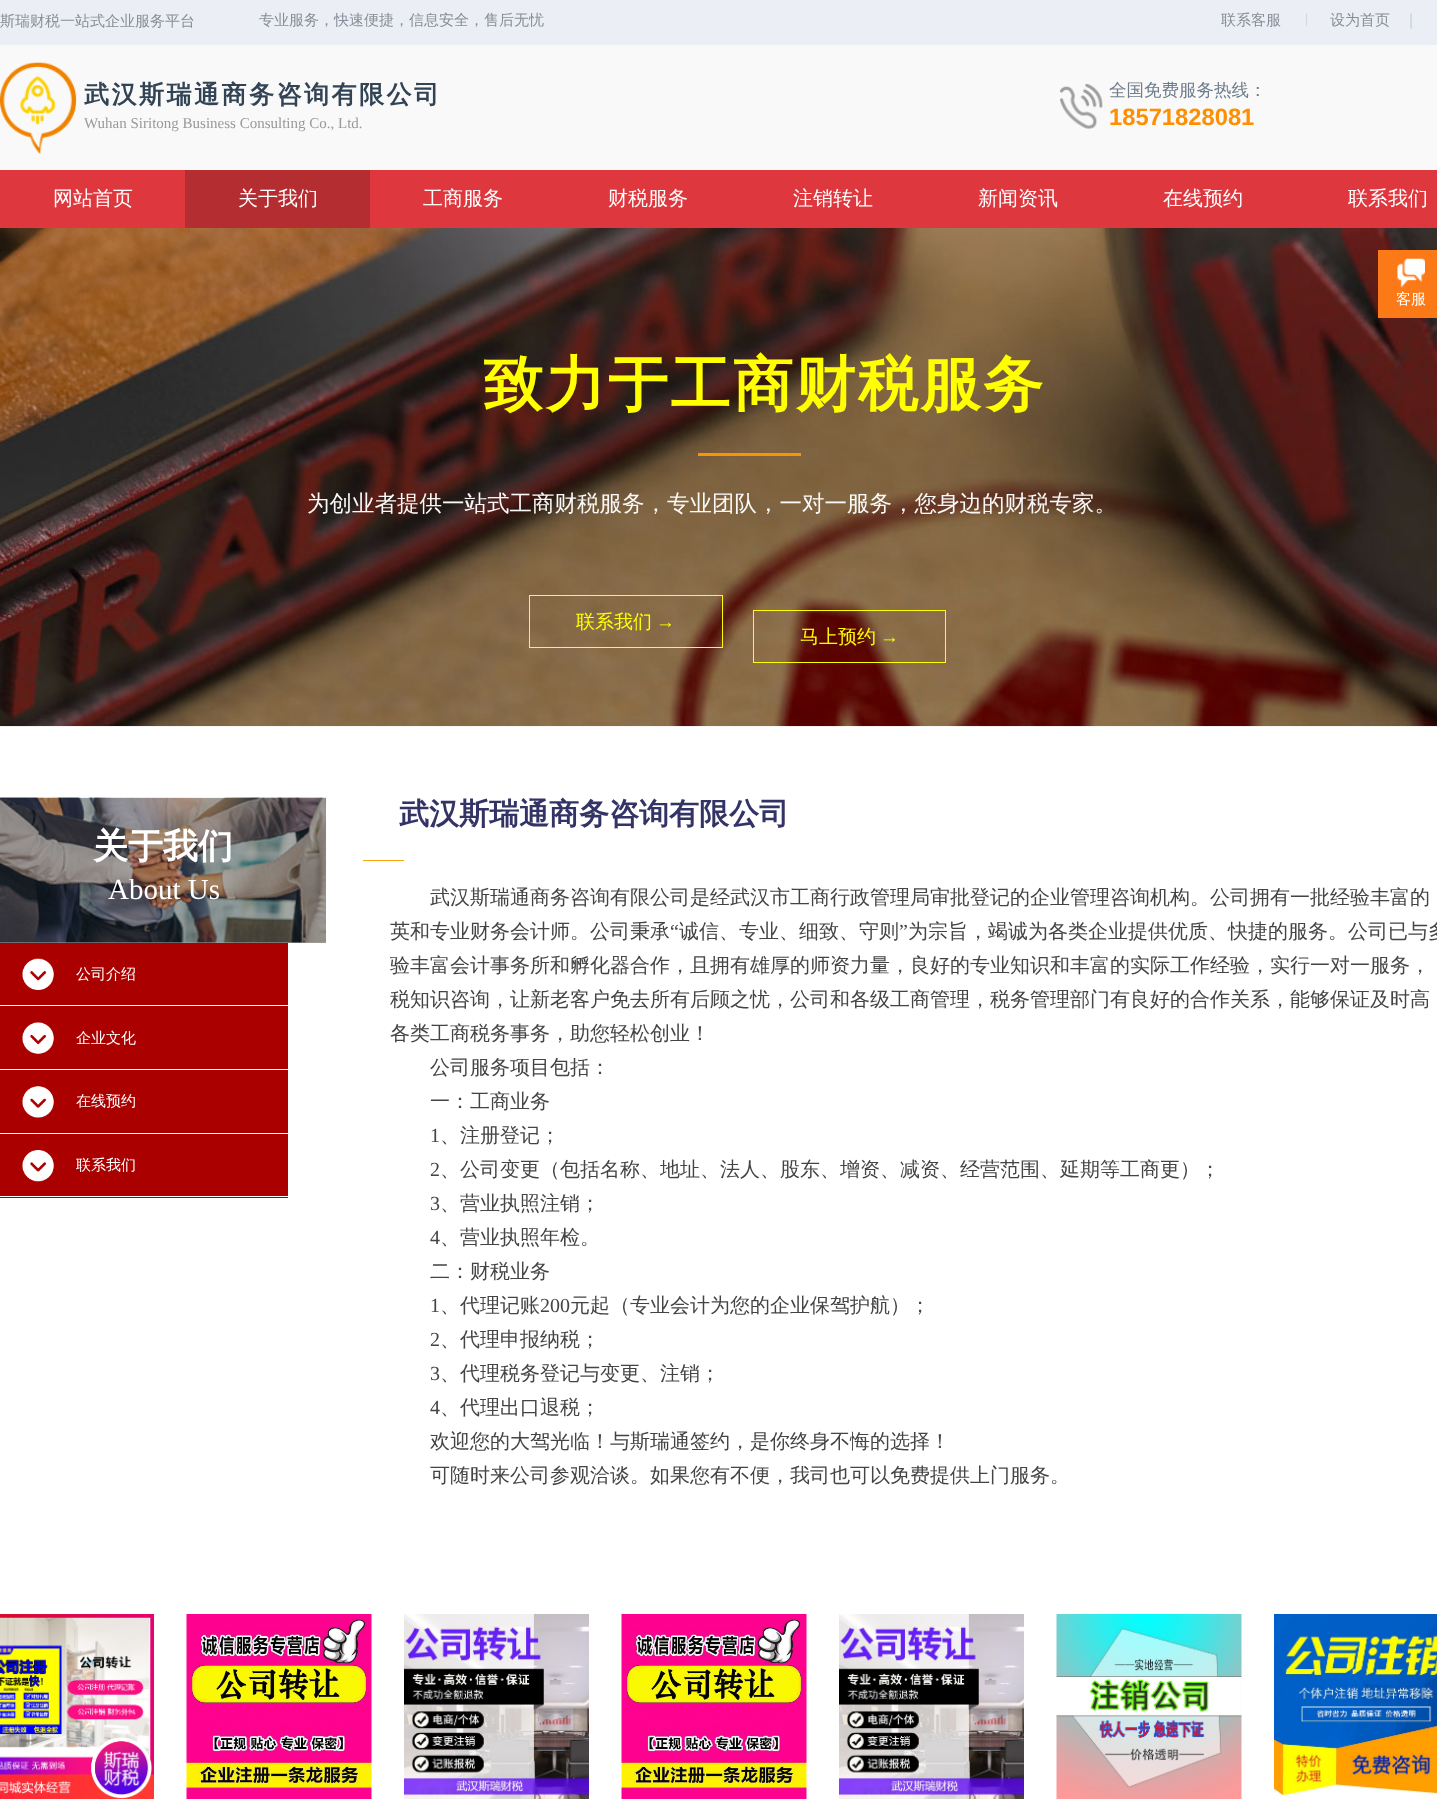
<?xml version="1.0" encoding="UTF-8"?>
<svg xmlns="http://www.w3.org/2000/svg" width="1437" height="1804">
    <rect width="100%" height="100%" fill="#FFFFFF"/>
    <rect x="0" y="942" width="326" height="1" fill="#A8A8A8"/>
    <rect x="0" y="0" width="1437" height="45" fill="#EBEEF4"/>
    <text x="0" y="26" font-family="WenQuanYi Zen Hei" font-size="15" font-weight="500" fill="#878D99">斯瑞财税一站式企业服务平台</text>
    <text x="259" y="25" font-family="WenQuanYi Zen Hei" font-size="15" font-weight="500" fill="#878D99">专业服务，快速便捷，信息安全，售后无忧</text>
    <text x="1221" y="25" font-family="WenQuanYi Zen Hei" font-size="15" font-weight="500" fill="#878D99">联系客服</text>
    <text x="1305" y="23" font-family="Liberation Serif" font-size="14" fill="#C9D0DD">|</text>
    <text x="1330" y="25" font-family="WenQuanYi Zen Hei" font-size="15" font-weight="500" fill="#878D99">设为首页</text>
    <text x="1409" y="25" font-family="Liberation Sans" font-size="16" fill="#C9D0DD">|</text>
    <rect x="0" y="45" width="1437" height="125" fill="#F9F9F9"/>
    <image x="0" y="62" width="77" height="92" href="img_01.png"/>
    <text x="84" y="103" font-family="WenQuanYi Zen Hei" font-size="25" font-weight="700" letter-spacing="2.5" fill="#314354">武汉斯瑞通商务咨询有限公司</text>
    <image x="1060" y="83" width="43" height="46" href="img_02.png"/>
    <text x="1109" y="96" font-family="WenQuanYi Zen Hei" font-size="17.5" font-weight="500" fill="#6E7C8B">全国免费服务热线：</text>
    <text x="84" y="128" font-family="Liberation Serif" font-size="15" fill="#999999">Wuhan Siritong Business Consulting Co., Ltd.</text>
    <text x="1109" y="125" font-family="Liberation Sans" font-size="23.75" font-weight="700" fill="#FF8E00">18571828081</text>
    <rect x="0" y="170" width="1437" height="58" fill="#DE373E"/>
    <text x="53" y="205" font-family="WenQuanYi Zen Hei" font-size="20" font-weight="500" fill="#FFFFFF">网站首页</text>
    <rect x="185" y="170" width="185" height="58" fill="#B32D31"/>
    <text x="238" y="205" font-family="WenQuanYi Zen Hei" font-size="20" font-weight="500" fill="#FFFFFF">关于我们</text>
    <text x="423" y="205" font-family="WenQuanYi Zen Hei" font-size="20" font-weight="500" fill="#FFFFFF">工商服务</text>
    <text x="608" y="205" font-family="WenQuanYi Zen Hei" font-size="20" font-weight="500" fill="#FFFFFF">财税服务</text>
    <text x="793" y="205" font-family="WenQuanYi Zen Hei" font-size="20" font-weight="500" fill="#FFFFFF">注销转让</text>
    <text x="978" y="205" font-family="WenQuanYi Zen Hei" font-size="20" font-weight="500" fill="#FFFFFF">新闻资讯</text>
    <text x="1163" y="205" font-family="WenQuanYi Zen Hei" font-size="20" font-weight="500" fill="#FFFFFF">在线预约</text>
    <text x="1348" y="205" font-family="WenQuanYi Zen Hei" font-size="20" font-weight="500" fill="#FFFFFF">联系我们</text>
    <image x="0" y="228" width="1437" height="499" href="img_03.png"/>
    <text x="483" y="405" font-family="WenQuanYi Zen Hei" font-size="60" font-weight="700" letter-spacing="2.5" fill="#FFFF00">致力于工商财税服务</text>
    <rect x="698" y="453" width="103" height="3" fill="#FF9900" fill-opacity="0.94"/>
    <text x="307" y="511" font-family="WenQuanYi Zen Hei" font-size="22.5" font-weight="500" fill="#FAF9F8">为创业者提供一站式工商财税服务，专业团队，一对一服务，您身边的财税专家。</text>
    <rect x="529.5" y="595.5" width="193" height="52" fill="none" stroke="#FFFF00"/>
    <text x="576" y="628" font-family="WenQuanYi Zen Hei" font-size="19" font-weight="500" fill="#FFFF00">联系我们</text>
    <text x="656" y="628" font-family="Liberation Serif" font-size="19" fill="#FFFF00">→</text>
    <rect x="753.5" y="610.5" width="192" height="52" fill="none" stroke="#FFFF00"/>
    <text x="800" y="643" font-family="WenQuanYi Zen Hei" font-size="19" font-weight="500" fill="#FFFF00">马上预约</text>
    <text x="880" y="643" font-family="Liberation Serif" font-size="19" fill="#FFFF00">→</text>
    <image x="0" y="797" width="327" height="146" href="img_04.png"/>
    <text x="399" y="824" font-family="WenQuanYi Zen Hei" font-size="30" font-weight="700" fill="#333366">武汉斯瑞通商务咨询有限公司</text>
    <text x="93" y="858" font-family="WenQuanYi Zen Hei" font-size="35" font-weight="700" fill="#FFFFFF">关于我们</text>
    <text x="108" y="899" font-family="Liberation Serif" font-size="29" fill="#FFFFFF">About Us</text>
    <rect x="363" y="860" width="41" height="1" fill="#FFA010"/>
    <rect x="0" y="943" width="288" height="255" fill="#AB0000"/>
    <rect x="0" y="1005" width="288" height="1" fill="#FFFFFF"/>
    <image x="22" y="958" width="32" height="32" href="img_05.png"/>
    <text x="76" y="979" font-family="WenQuanYi Zen Hei" font-size="15" font-weight="500" fill="#FFFFFF">公司介绍</text>
    <rect x="0" y="1069" width="288" height="1" fill="#FFFFFF"/>
    <image x="22" y="1022" width="32" height="32" href="img_06.png"/>
    <text x="76" y="1043" font-family="WenQuanYi Zen Hei" font-size="15" font-weight="500" fill="#FFFFFF">企业文化</text>
    <rect x="0" y="1133" width="288" height="1" fill="#FFFFFF"/>
    <image x="22" y="1086" width="32" height="32" href="img_07.png"/>
    <text x="76" y="1106" font-family="WenQuanYi Zen Hei" font-size="15" font-weight="500" fill="#FFFFFF">在线预约</text>
    <rect x="0" y="1196" width="288" height="1" fill="#FFFFFF"/>
    <image x="22" y="1150" width="32" height="32" href="img_08.png"/>
    <text x="76" y="1170" font-family="WenQuanYi Zen Hei" font-size="15" font-weight="500" fill="#FFFFFF">联系我们</text>
    <text x="430" y="904" font-family="WenQuanYi Zen Hei" font-size="20" font-weight="500" fill="#444444">武汉斯瑞通商务咨询有限公司是经武汉市工商行政管理局审批登记的企业管理咨询机构。公司拥有一批经验丰富的</text>
    <text x="390" y="938" font-family="WenQuanYi Zen Hei" font-size="20" font-weight="500" fill="#444444">英和专业财务会计师。公司秉承</text>
    <text x="670" y="938" font-family="Liberation Serif" font-size="20" fill="#444444">“</text>
    <text x="679" y="938" font-family="WenQuanYi Zen Hei" font-size="20" font-weight="500" fill="#444444">诚信、专业、细致、守则</text>
    <text x="899" y="938" font-family="Liberation Serif" font-size="20" fill="#444444">”</text>
    <text x="908" y="938" font-family="WenQuanYi Zen Hei" font-size="20" font-weight="500" fill="#444444">为宗旨，竭诚为各类企业提供优质、快捷的服务。公司已与多</text>
    <text font-family="WenQuanYi Zen Hei" font-size="20" font-weight="500" fill="#444444">
        <tspan x="390" y="972">验丰富会计事务所和孵化器合作，且拥有雄厚的师资力量，良好的专业知识和丰富的实际工作经验，实行一对一服务，</tspan>
        <tspan x="390" y="1006">税知识咨询，让新老客户免去所有后顾之忧，公司和各级工商管理，税务管理部门有良好的合作关系，能够保证及时高</tspan>
        <tspan x="390" y="1040">各类工商税务事务，助您轻松创业！</tspan>
    </text>
    <text font-family="WenQuanYi Zen Hei" font-size="20" font-weight="500" fill="#444444">
        <tspan x="430" y="1074">公司服务项目包括：</tspan>
        <tspan x="430" y="1108">一：工商业务</tspan>
    </text>
    <text x="430" y="1142" font-family="Liberation Serif" font-size="20" fill="#444444">1</text>
    <text x="440" y="1142" font-family="WenQuanYi Zen Hei" font-size="20" font-weight="500" fill="#444444">、注册登记；</text>
    <text x="430" y="1176" font-family="Liberation Serif" font-size="20" fill="#444444">2</text>
    <text x="440" y="1176" font-family="WenQuanYi Zen Hei" font-size="20" font-weight="500" fill="#444444">、公司变更（包括名称、地址、法人、股东、增资、减资、经营范围、延期等工商更）；</text>
    <text x="430" y="1210" font-family="Liberation Serif" font-size="20" fill="#444444">3</text>
    <text x="440" y="1210" font-family="WenQuanYi Zen Hei" font-size="20" font-weight="500" fill="#444444">、营业执照注销；</text>
    <text x="430" y="1244" font-family="Liberation Serif" font-size="20" fill="#444444">4</text>
    <text x="440" y="1244" font-family="WenQuanYi Zen Hei" font-size="20" font-weight="500" fill="#444444">、营业执照年检。</text>
    <text x="430" y="1278" font-family="WenQuanYi Zen Hei" font-size="20" font-weight="500" fill="#444444">二：财税业务</text>
    <text x="430" y="1312" font-family="Liberation Serif" font-size="20" fill="#444444">1</text>
    <text x="440" y="1312" font-family="WenQuanYi Zen Hei" font-size="20" font-weight="500" fill="#444444">、代理记账</text>
    <text x="540" y="1312" font-family="Liberation Serif" font-size="20" fill="#444444">200</text>
    <text x="570" y="1312" font-family="WenQuanYi Zen Hei" font-size="20" font-weight="500" fill="#444444">元起（专业会计为您的企业保驾护航）；</text>
    <text x="430" y="1346" font-family="Liberation Serif" font-size="20" fill="#444444">2</text>
    <text x="440" y="1346" font-family="WenQuanYi Zen Hei" font-size="20" font-weight="500" fill="#444444">、代理申报纳税；</text>
    <text x="430" y="1380" font-family="Liberation Serif" font-size="20" fill="#444444">3</text>
    <text x="440" y="1380" font-family="WenQuanYi Zen Hei" font-size="20" font-weight="500" fill="#444444">、代理税务登记与变更、注销；</text>
    <text x="430" y="1414" font-family="Liberation Serif" font-size="20" fill="#444444">4</text>
    <text x="440" y="1414" font-family="WenQuanYi Zen Hei" font-size="20" font-weight="500" fill="#444444">、代理出口退税；</text>
    <text font-family="WenQuanYi Zen Hei" font-size="20" font-weight="500" fill="#444444">
        <tspan x="430" y="1448">欢迎您的大驾光临！与斯瑞通签约，是你终身不悔的选择！</tspan>
        <tspan x="430" y="1482">可随时来公司参观洽谈。如果您有不便，我司也可以免费提供上门服务。</tspan>
    </text>
    <image x="0" y="1614" width="154" height="185" href="img_09.png"/>
    <image x="186" y="1614" width="186" height="185" href="img_10.png"/>
    <image x="404" y="1614" width="185" height="185" href="img_11.png"/>
    <image x="621" y="1614" width="186" height="185" href="img_10.png"/>
    <image x="839" y="1614" width="185" height="185" href="img_11.png"/>
    <image x="1056" y="1614" width="186" height="185" href="img_12.png"/>
    <image x="1274" y="1614" width="163" height="182" href="img_13.png"/>
    <rect x="1378" y="250" width="59" height="68" fill="#FB7A17"/>
    <image x="1397" y="258" width="28" height="30" href="img_14.png"/>
    <text x="1396" y="304" font-family="WenQuanYi Zen Hei" font-size="15" font-weight="500" fill="#FFFFFF">客服</text>
</svg>
